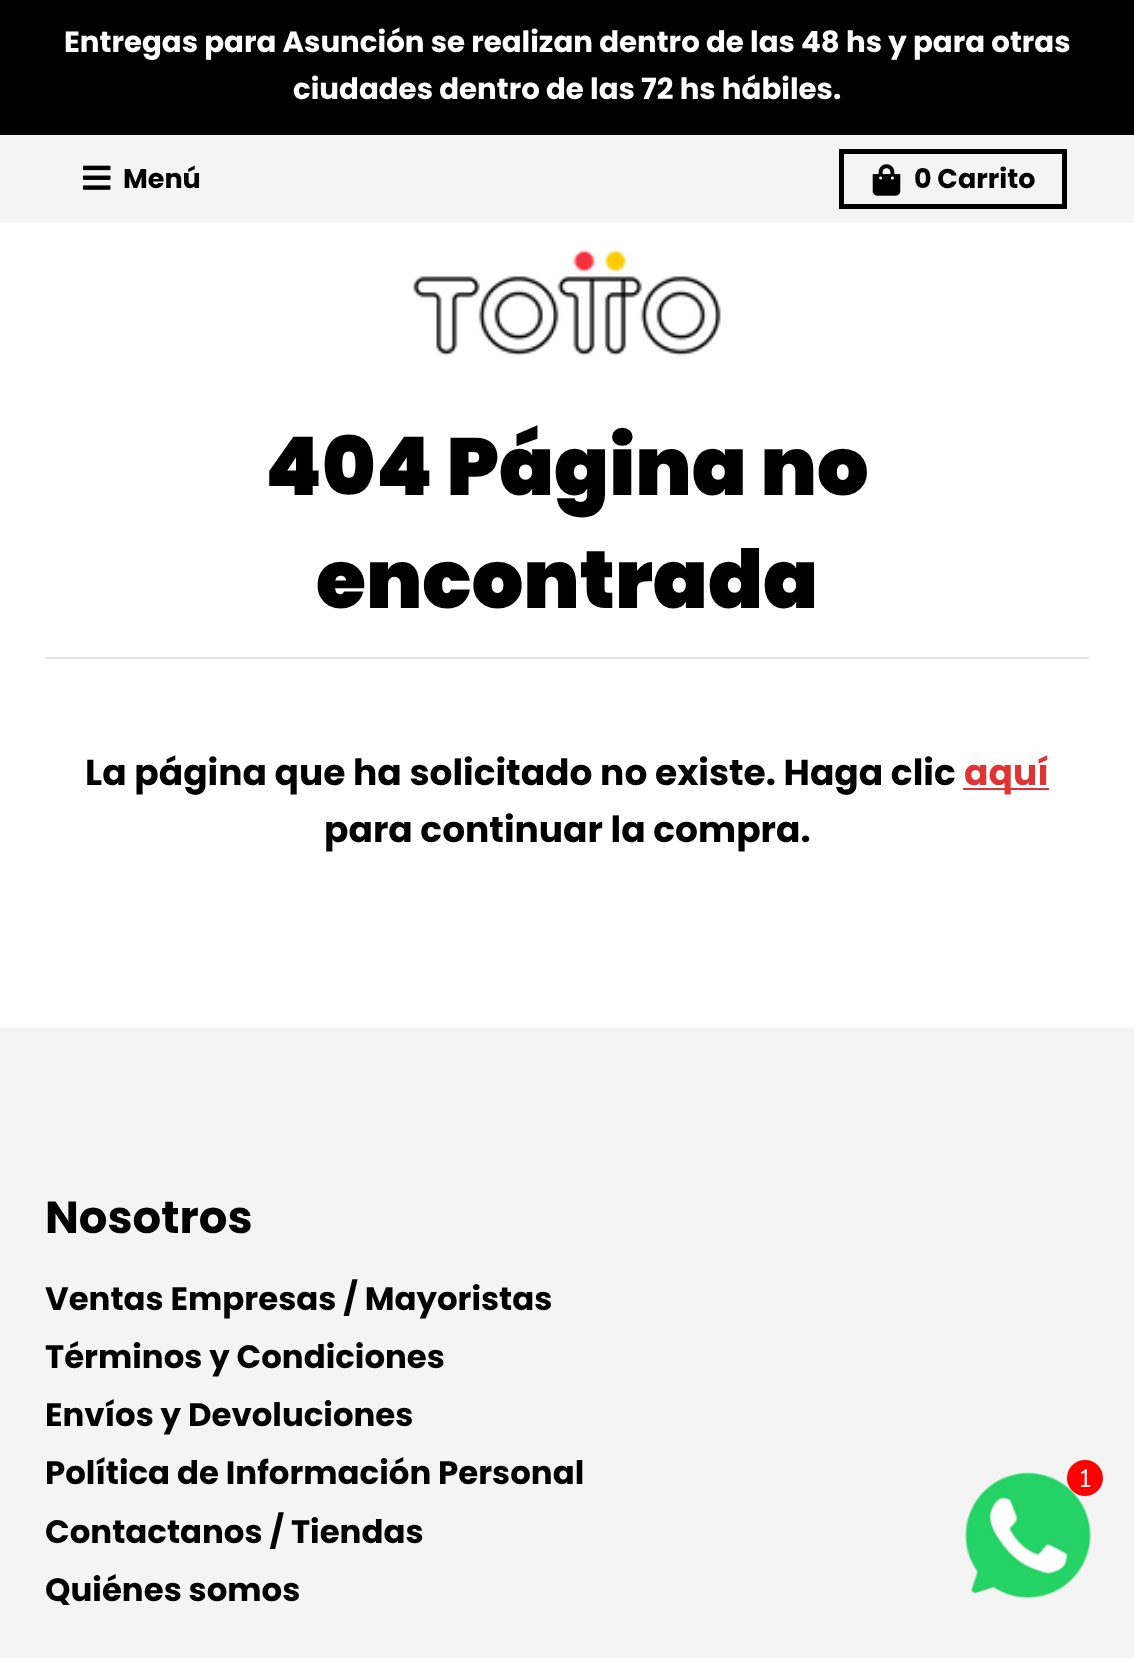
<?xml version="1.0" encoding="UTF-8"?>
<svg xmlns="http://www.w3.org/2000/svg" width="1134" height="1658">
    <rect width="100%" height="100%" fill="#FFFFFF"/>
    <rect x="0" y="0" width="1134" height="135" fill="#000000"/>
    <text x="64" y="52" font-family="Poppins" font-size="29.25" font-weight="700" fill="#FFFFFF">Entregas para Asunción se realizan dentro de las 48 hs y para otras</text>
    <text x="293" y="99" font-family="Poppins" font-size="29.25" font-weight="700" fill="#FFFFFF">ciudades dentro de las 72 hs hábiles.</text>
    <rect x="0" y="135" width="1134" height="88" fill="#F4F4F4"/>
    <image x="82" y="165" width="29" height="25" href="img_01.png"/>
    <text x="123" y="188" font-family="Poppins" font-size="27" font-weight="700" fill="#000000">Menú</text>
    <rect x="841.5" y="151.5" width="223" height="55" fill="none" stroke="#000000" stroke-width="5"/>
    <image x="872" y="164" width="29" height="32" href="img_02.png"/>
    <text x="914" y="188" font-family="Poppins" font-size="27" font-weight="700" fill="#000000">0 Carrito</text>
    <image x="413" y="249" width="308" height="107" href="img_03.png"/>
    <rect x="45" y="657" width="1044" height="2" fill="#E5E5E5"/>
    <text x="265" y="495" font-family="Poppins" font-size="81" font-weight="900" fill="#000000">404 Página no</text>
    <text x="316" y="608" font-family="Poppins" font-size="81" font-weight="900" fill="#000000">encontrada</text>
    <text x="85" y="785" font-family="Poppins" font-size="36" font-weight="700" fill="#000000">La página que ha solicitado no existe. Haga clic</text>
    <rect x="963" y="788" width="86" height="2" fill="#E03333"/>
    <text x="964" y="785" font-family="Poppins" font-size="36" font-weight="700" fill="#E03333">aquí</text>
    <text x="324" y="842" font-family="Poppins" font-size="36" font-weight="700" fill="#000000">para continuar la compra.</text>
    <rect x="0" y="1028" width="1134" height="630" fill="#F4F4F4"/>
    <text x="45" y="1233" font-family="Poppins" font-size="45" font-weight="700" fill="#000000">Nosotros</text>
    <text font-family="Poppins" font-size="32.4" font-weight="700" fill="#000000">
        <tspan x="45" y="1310">Ventas Empresas / Mayoristas</tspan>
        <tspan x="45" y="1368">Términos y Condiciones</tspan>
        <tspan x="45" y="1426">Envíos y Devoluciones</tspan>
        <tspan x="45" y="1484">Política de Información Personal</tspan>
        <tspan x="45" y="1543">Contactanos / Tiendas</tspan>
        <tspan x="45" y="1601">Quiénes somos</tspan>
    </text>
    <image x="964" y="1472" width="127" height="127" href="img_04.png"/>
    <circle cx="1085" cy="1478" r="18" fill="#FF0000"/>
    <text x="1080" y="1487" font-family="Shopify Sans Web" font-size="25" fill="#FFFFFF">1</text>
</svg>
